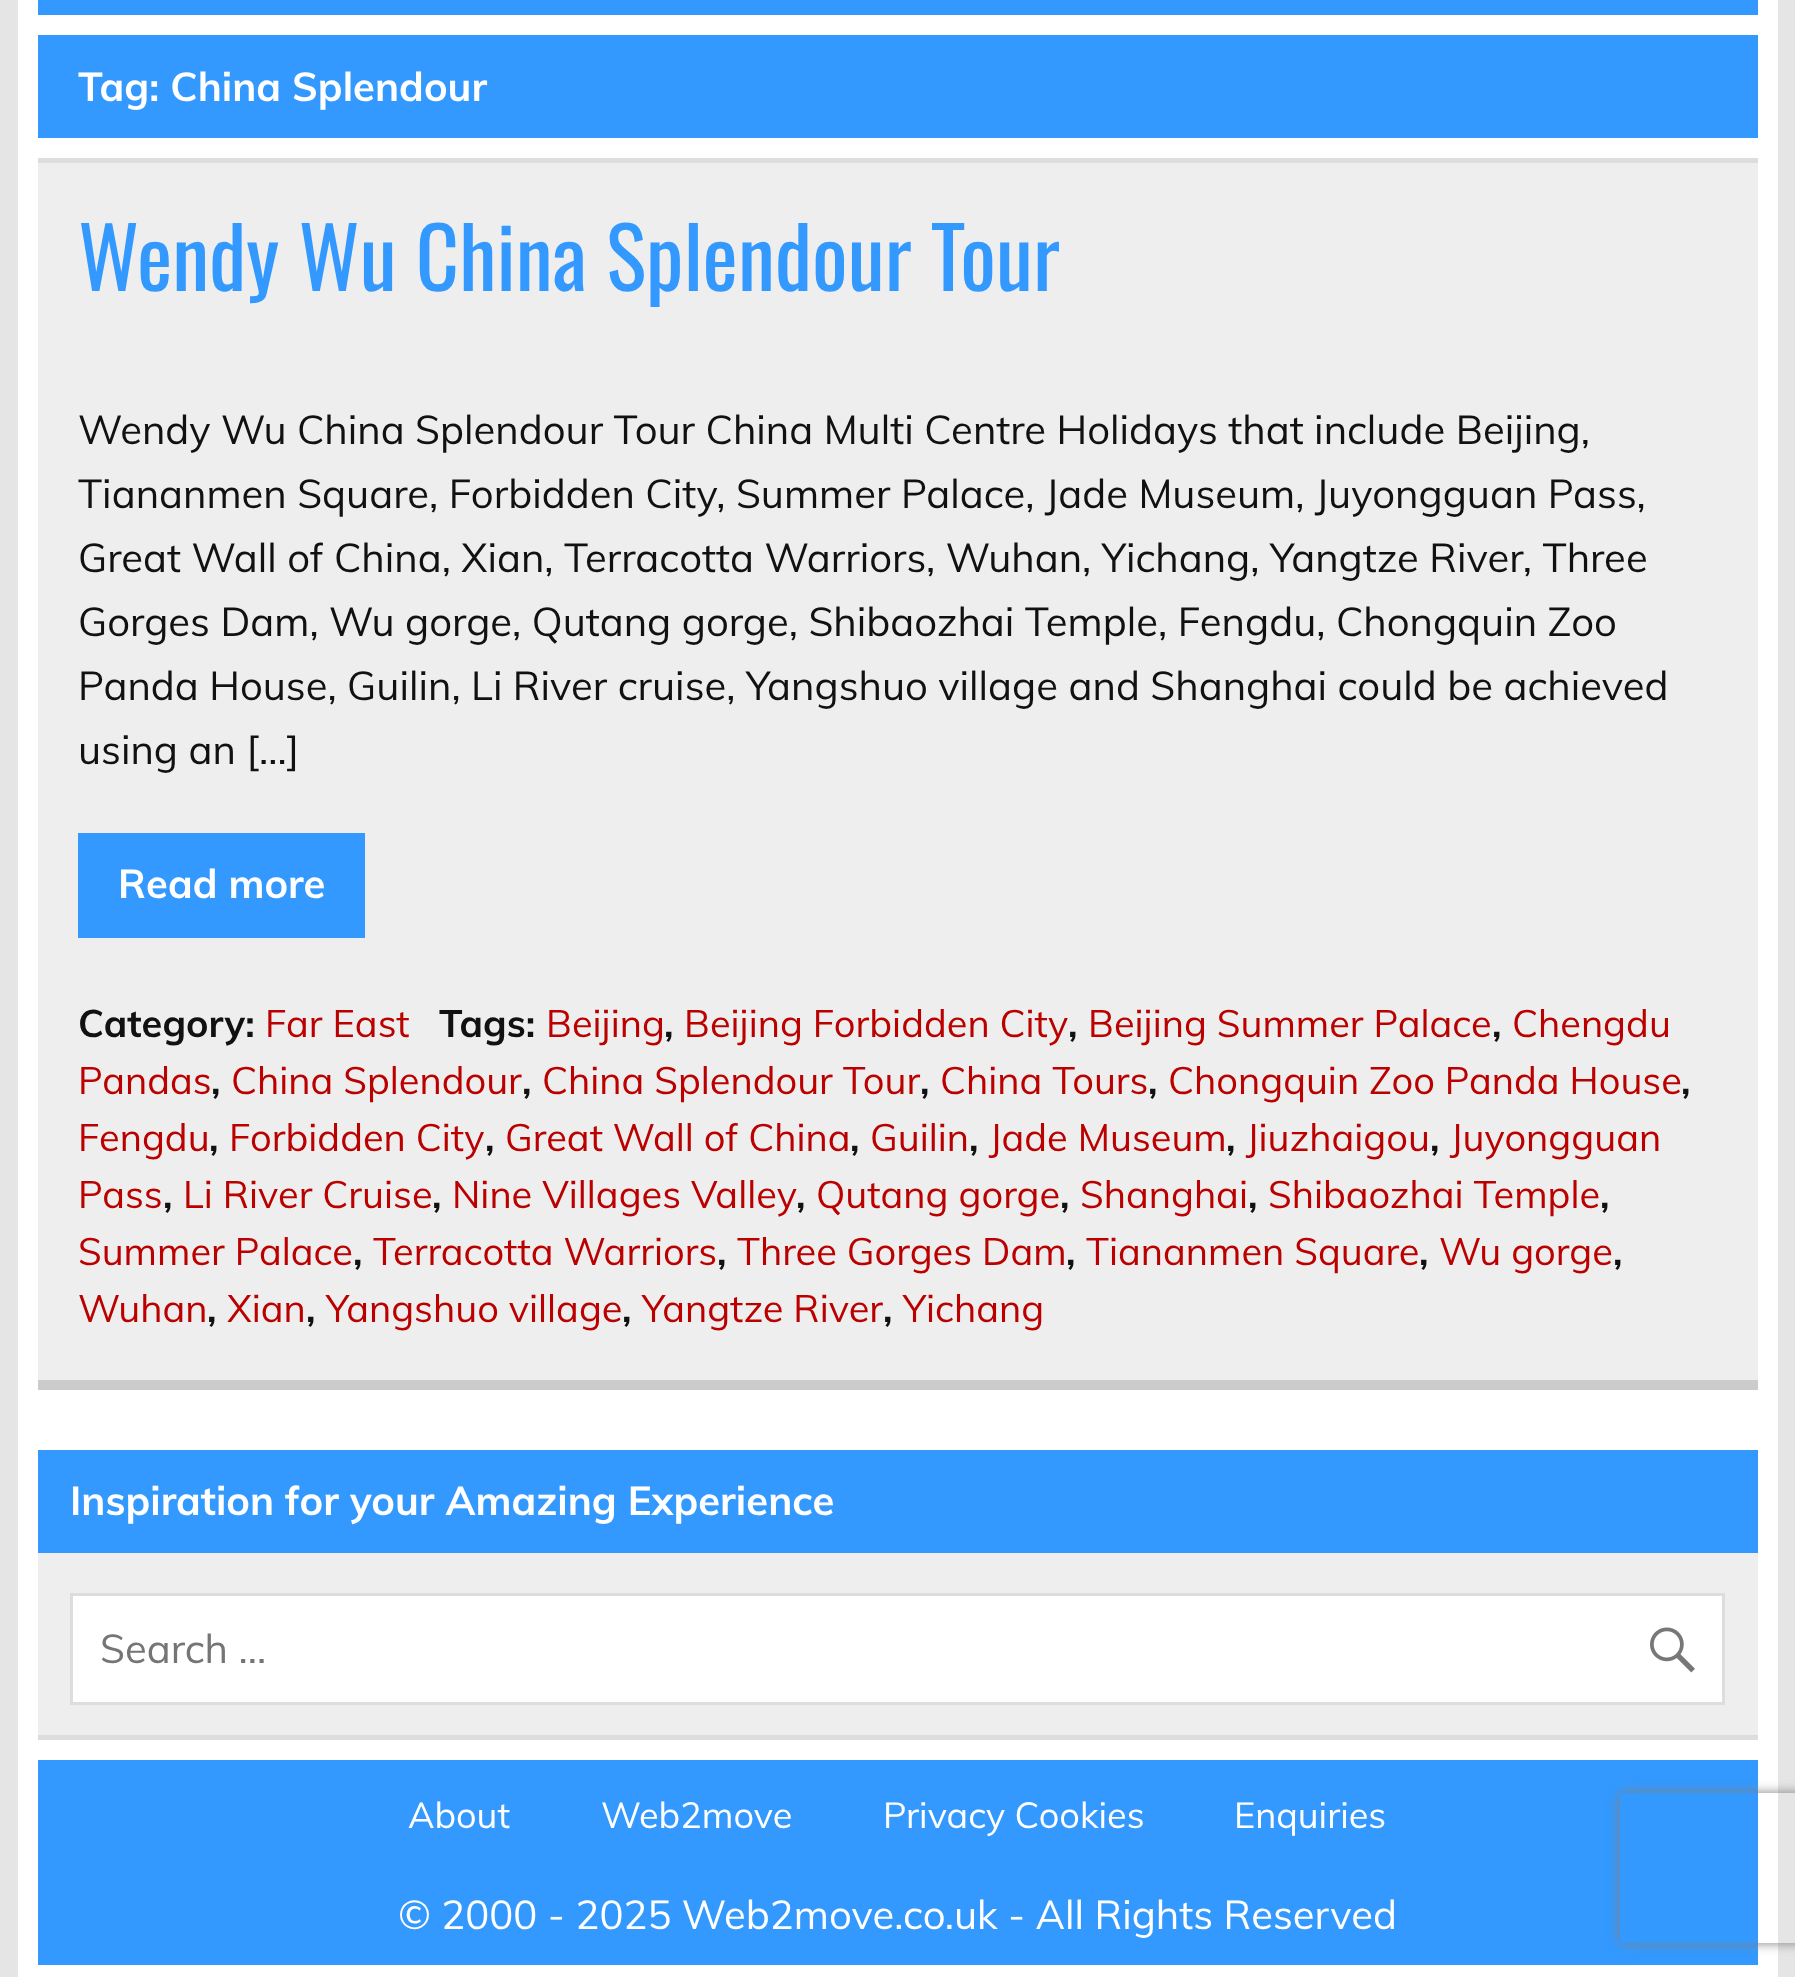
<?xml version="1.0" encoding="UTF-8"?>
<svg xmlns="http://www.w3.org/2000/svg" width="1795" height="1977">
    <defs>
        <clipPath id="clip1"><path d="M 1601 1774 H 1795 V 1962 H 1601 Z M 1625 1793 H 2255 C 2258 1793 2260 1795 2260 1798 V 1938 C 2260 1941 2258 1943 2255 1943 H 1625 C 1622 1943 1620 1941 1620 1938 V 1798 C 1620 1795 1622 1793 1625 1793 Z" clip-rule="evenodd"/></clipPath>
        <filter id="blur1" x="-50%" y="-200%" width="200%" height="500%"><feGaussianBlur stdDeviation="6"/></filter>
    </defs>
    <rect width="100%" height="100%" fill="#E5E5E5"/>
    <rect x="18" y="0" width="1760" height="1977" fill="#FFFFFF"/>
    <rect x="38" y="0" width="1720" height="15" fill="#3399FF"/>
    <rect x="38" y="35" width="1720" height="103" fill="#3399FF"/>
    <text x="78" y="101" font-family="Muli" font-size="40" font-weight="700" fill="#FFFFFF">Tag: China Splendour</text>
    <rect x="38" y="163" width="1720" height="1217" fill="#EEEEEE"/>
    <rect x="38" y="158" width="1720" height="5" fill="#DDDDDD"/>
    <rect x="38" y="1380" width="1720" height="10" fill="#CCCCCC"/>
    <text x="78" y="291" font-family="Oswald" font-size="84" fill="#3399FF">Wendy Wu China Splendour Tour</text>
    <text font-family="Muli" font-size="40" fill="#111111">
        <tspan x="78" y="444">Wendy Wu China Splendour Tour China Multi Centre Holidays that include Beijing,</tspan>
        <tspan x="78" y="508">Tiananmen Square, Forbidden City, Summer Palace, Jade Museum, Juyongguan Pass,</tspan>
        <tspan x="78" y="572">Great Wall of China, Xian, Terracotta Warriors, Wuhan, Yichang, Yangtze River, Three</tspan>
        <tspan x="78" y="636">Gorges Dam, Wu gorge, Qutang gorge, Shibaozhai Temple, Fengdu, Chongquin Zoo</tspan>
        <tspan x="78" y="700">Panda House, Guilin, Li River cruise, Yangshuo village and Shanghai could be achieved</tspan>
        <tspan x="78" y="764">using an […]</tspan>
    </text>
    <rect x="78" y="833" width="287" height="105" fill="#3399FF"/>
    <text x="118" y="898" font-family="Muli" font-size="40" font-weight="700" fill="#FFFFFF">Read more</text>
    <text x="78" y="1037" font-family="Muli" font-size="38" font-weight="700" fill="#111111">Category:</text>
    <text x="265" y="1037" font-family="Muli" font-size="38" fill="#BB0000">Far East</text>
    <text x="439" y="1037" font-family="Muli" font-size="38" font-weight="700" fill="#111111">Tags:</text>
    <text x="546" y="1037" font-family="Muli" font-size="38" fill="#BB0000">Beijing</text>
    <text x="664" y="1037" font-family="Muli" font-size="38" font-weight="700" fill="#111111">,</text>
    <text x="684" y="1037" font-family="Muli" font-size="38" fill="#BB0000">Beijing Forbidden City</text>
    <text x="1068" y="1037" font-family="Muli" font-size="38" font-weight="700" fill="#111111">,</text>
    <text x="1088" y="1037" font-family="Muli" font-size="38" fill="#BB0000">Beijing Summer Palace</text>
    <text x="1492" y="1037" font-family="Muli" font-size="38" font-weight="700" fill="#111111">,</text>
    <text x="1512" y="1037" font-family="Muli" font-size="38" fill="#BB0000">Chengdu</text>
    <text x="78" y="1094" font-family="Muli" font-size="38" fill="#BB0000">Pandas</text>
    <text x="211" y="1094" font-family="Muli" font-size="38" font-weight="700" fill="#111111">,</text>
    <text x="231" y="1094" font-family="Muli" font-size="38" fill="#BB0000">China Splendour</text>
    <text x="522" y="1094" font-family="Muli" font-size="38" font-weight="700" fill="#111111">,</text>
    <text x="542" y="1094" font-family="Muli" font-size="38" fill="#BB0000">China Splendour Tour</text>
    <text x="920" y="1094" font-family="Muli" font-size="38" font-weight="700" fill="#111111">,</text>
    <text x="940" y="1094" font-family="Muli" font-size="38" fill="#BB0000">China Tours</text>
    <text x="1148" y="1094" font-family="Muli" font-size="38" font-weight="700" fill="#111111">,</text>
    <text x="1168" y="1094" font-family="Muli" font-size="38" fill="#BB0000">Chongquin Zoo Panda House</text>
    <text x="1681" y="1094" font-family="Muli" font-size="38" font-weight="700" fill="#111111">,</text>
    <text x="78" y="1151" font-family="Muli" font-size="38" fill="#BB0000">Fengdu</text>
    <text x="209" y="1151" font-family="Muli" font-size="38" font-weight="700" fill="#111111">,</text>
    <text x="229" y="1151" font-family="Muli" font-size="38" fill="#BB0000">Forbidden City</text>
    <text x="485" y="1151" font-family="Muli" font-size="38" font-weight="700" fill="#111111">,</text>
    <text x="505" y="1151" font-family="Muli" font-size="38" fill="#BB0000">Great Wall of China</text>
    <text x="850" y="1151" font-family="Muli" font-size="38" font-weight="700" fill="#111111">,</text>
    <text x="870" y="1151" font-family="Muli" font-size="38" fill="#BB0000">Guilin</text>
    <text x="969" y="1151" font-family="Muli" font-size="38" font-weight="700" fill="#111111">,</text>
    <text x="989" y="1151" font-family="Muli" font-size="38" fill="#BB0000">Jade Museum</text>
    <text x="1226" y="1151" font-family="Muli" font-size="38" font-weight="700" fill="#111111">,</text>
    <text x="1246" y="1151" font-family="Muli" font-size="38" fill="#BB0000">Jiuzhaigou</text>
    <text x="1430" y="1151" font-family="Muli" font-size="38" font-weight="700" fill="#111111">,</text>
    <text x="1450" y="1151" font-family="Muli" font-size="38" fill="#BB0000">Juyongguan</text>
    <text x="78" y="1208" font-family="Muli" font-size="38" fill="#BB0000">Pass</text>
    <text x="163" y="1208" font-family="Muli" font-size="38" font-weight="700" fill="#111111">,</text>
    <text x="183" y="1208" font-family="Muli" font-size="38" fill="#BB0000">Li River Cruise</text>
    <text x="432" y="1208" font-family="Muli" font-size="38" font-weight="700" fill="#111111">,</text>
    <text x="452" y="1208" font-family="Muli" font-size="38" fill="#BB0000">Nine Villages Valley</text>
    <text x="796" y="1208" font-family="Muli" font-size="38" font-weight="700" fill="#111111">,</text>
    <text x="816" y="1208" font-family="Muli" font-size="38" fill="#BB0000">Qutang gorge</text>
    <text x="1060" y="1208" font-family="Muli" font-size="38" font-weight="700" fill="#111111">,</text>
    <text x="1080" y="1208" font-family="Muli" font-size="38" fill="#BB0000">Shanghai</text>
    <text x="1248" y="1208" font-family="Muli" font-size="38" font-weight="700" fill="#111111">,</text>
    <text x="1268" y="1208" font-family="Muli" font-size="38" fill="#BB0000">Shibaozhai Temple</text>
    <text x="1600" y="1208" font-family="Muli" font-size="38" font-weight="700" fill="#111111">,</text>
    <text x="78" y="1265" font-family="Muli" font-size="38" fill="#BB0000">Summer Palace</text>
    <text x="353" y="1265" font-family="Muli" font-size="38" font-weight="700" fill="#111111">,</text>
    <text x="373" y="1265" font-family="Muli" font-size="38" fill="#BB0000">Terracotta Warriors</text>
    <text x="717" y="1265" font-family="Muli" font-size="38" font-weight="700" fill="#111111">,</text>
    <text x="737" y="1265" font-family="Muli" font-size="38" fill="#BB0000">Three Gorges Dam</text>
    <text x="1066" y="1265" font-family="Muli" font-size="38" font-weight="700" fill="#111111">,</text>
    <text x="1086" y="1265" font-family="Muli" font-size="38" fill="#BB0000">Tiananmen Square</text>
    <text x="1419" y="1265" font-family="Muli" font-size="38" font-weight="700" fill="#111111">,</text>
    <text x="1439" y="1265" font-family="Muli" font-size="38" fill="#BB0000">Wu gorge</text>
    <text x="1613" y="1265" font-family="Muli" font-size="38" font-weight="700" fill="#111111">,</text>
    <text x="78" y="1322" font-family="Muli" font-size="38" fill="#BB0000">Wuhan</text>
    <text x="207" y="1322" font-family="Muli" font-size="38" font-weight="700" fill="#111111">,</text>
    <text x="227" y="1322" font-family="Muli" font-size="38" fill="#BB0000">Xian</text>
    <text x="306" y="1322" font-family="Muli" font-size="38" font-weight="700" fill="#111111">,</text>
    <text x="326" y="1322" font-family="Muli" font-size="38" fill="#BB0000">Yangshuo village</text>
    <text x="622" y="1322" font-family="Muli" font-size="38" font-weight="700" fill="#111111">,</text>
    <text x="642" y="1322" font-family="Muli" font-size="38" fill="#BB0000">Yangtze River</text>
    <text x="883" y="1322" font-family="Muli" font-size="38" font-weight="700" fill="#111111">,</text>
    <text x="903" y="1322" font-family="Muli" font-size="38" fill="#BB0000">Yichang</text>
    <rect x="38" y="1553" width="1720" height="182" fill="#EEEEEE"/>
    <rect x="38" y="1735" width="1720" height="5" fill="#DDDDDD"/>
    <rect x="38" y="1450" width="1720" height="103" fill="#3399FF"/>
    <text x="70" y="1515" font-family="Muli" font-size="40" font-weight="700" fill="#FFFFFF">Inspiration for your Amazing Experience</text>
    <rect x="71.5" y="1594.5" width="1652" height="109" fill="#FFFFFF" stroke="#DDDDDD" stroke-width="3"/>
    <text x="100" y="1663" font-family="Muli" font-size="40" fill="#757575">Search …</text>
    <image x="1650" y="1627" width="45" height="46" href="img_01.png"/>
    <rect x="38" y="1760" width="1720" height="205" fill="#3399FF"/>
    <text x="408" y="1828" font-family="Muli" font-size="36" fill="#FFFFFF">About</text>
    <text x="601" y="1828" font-family="Muli" font-size="36" fill="#FFFFFF">Web2move</text>
    <text x="883" y="1828" font-family="Muli" font-size="36" fill="#FFFFFF">Privacy Cookies</text>
    <text x="1234" y="1828" font-family="Muli" font-size="36" fill="#FFFFFF">Enquiries</text>
    <text x="398" y="1929" font-family="Muli" font-size="40" fill="#FFFFFF">© 2000 - 2025 Web2move.co.uk - All Rights Reserved</text>
    <g clip-path="url(#clip1)">
        <rect x="1620" y="1793" width="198" height="150" rx="5" fill="#808080" filter="url(#blur1)"/>
    </g>
</svg>
